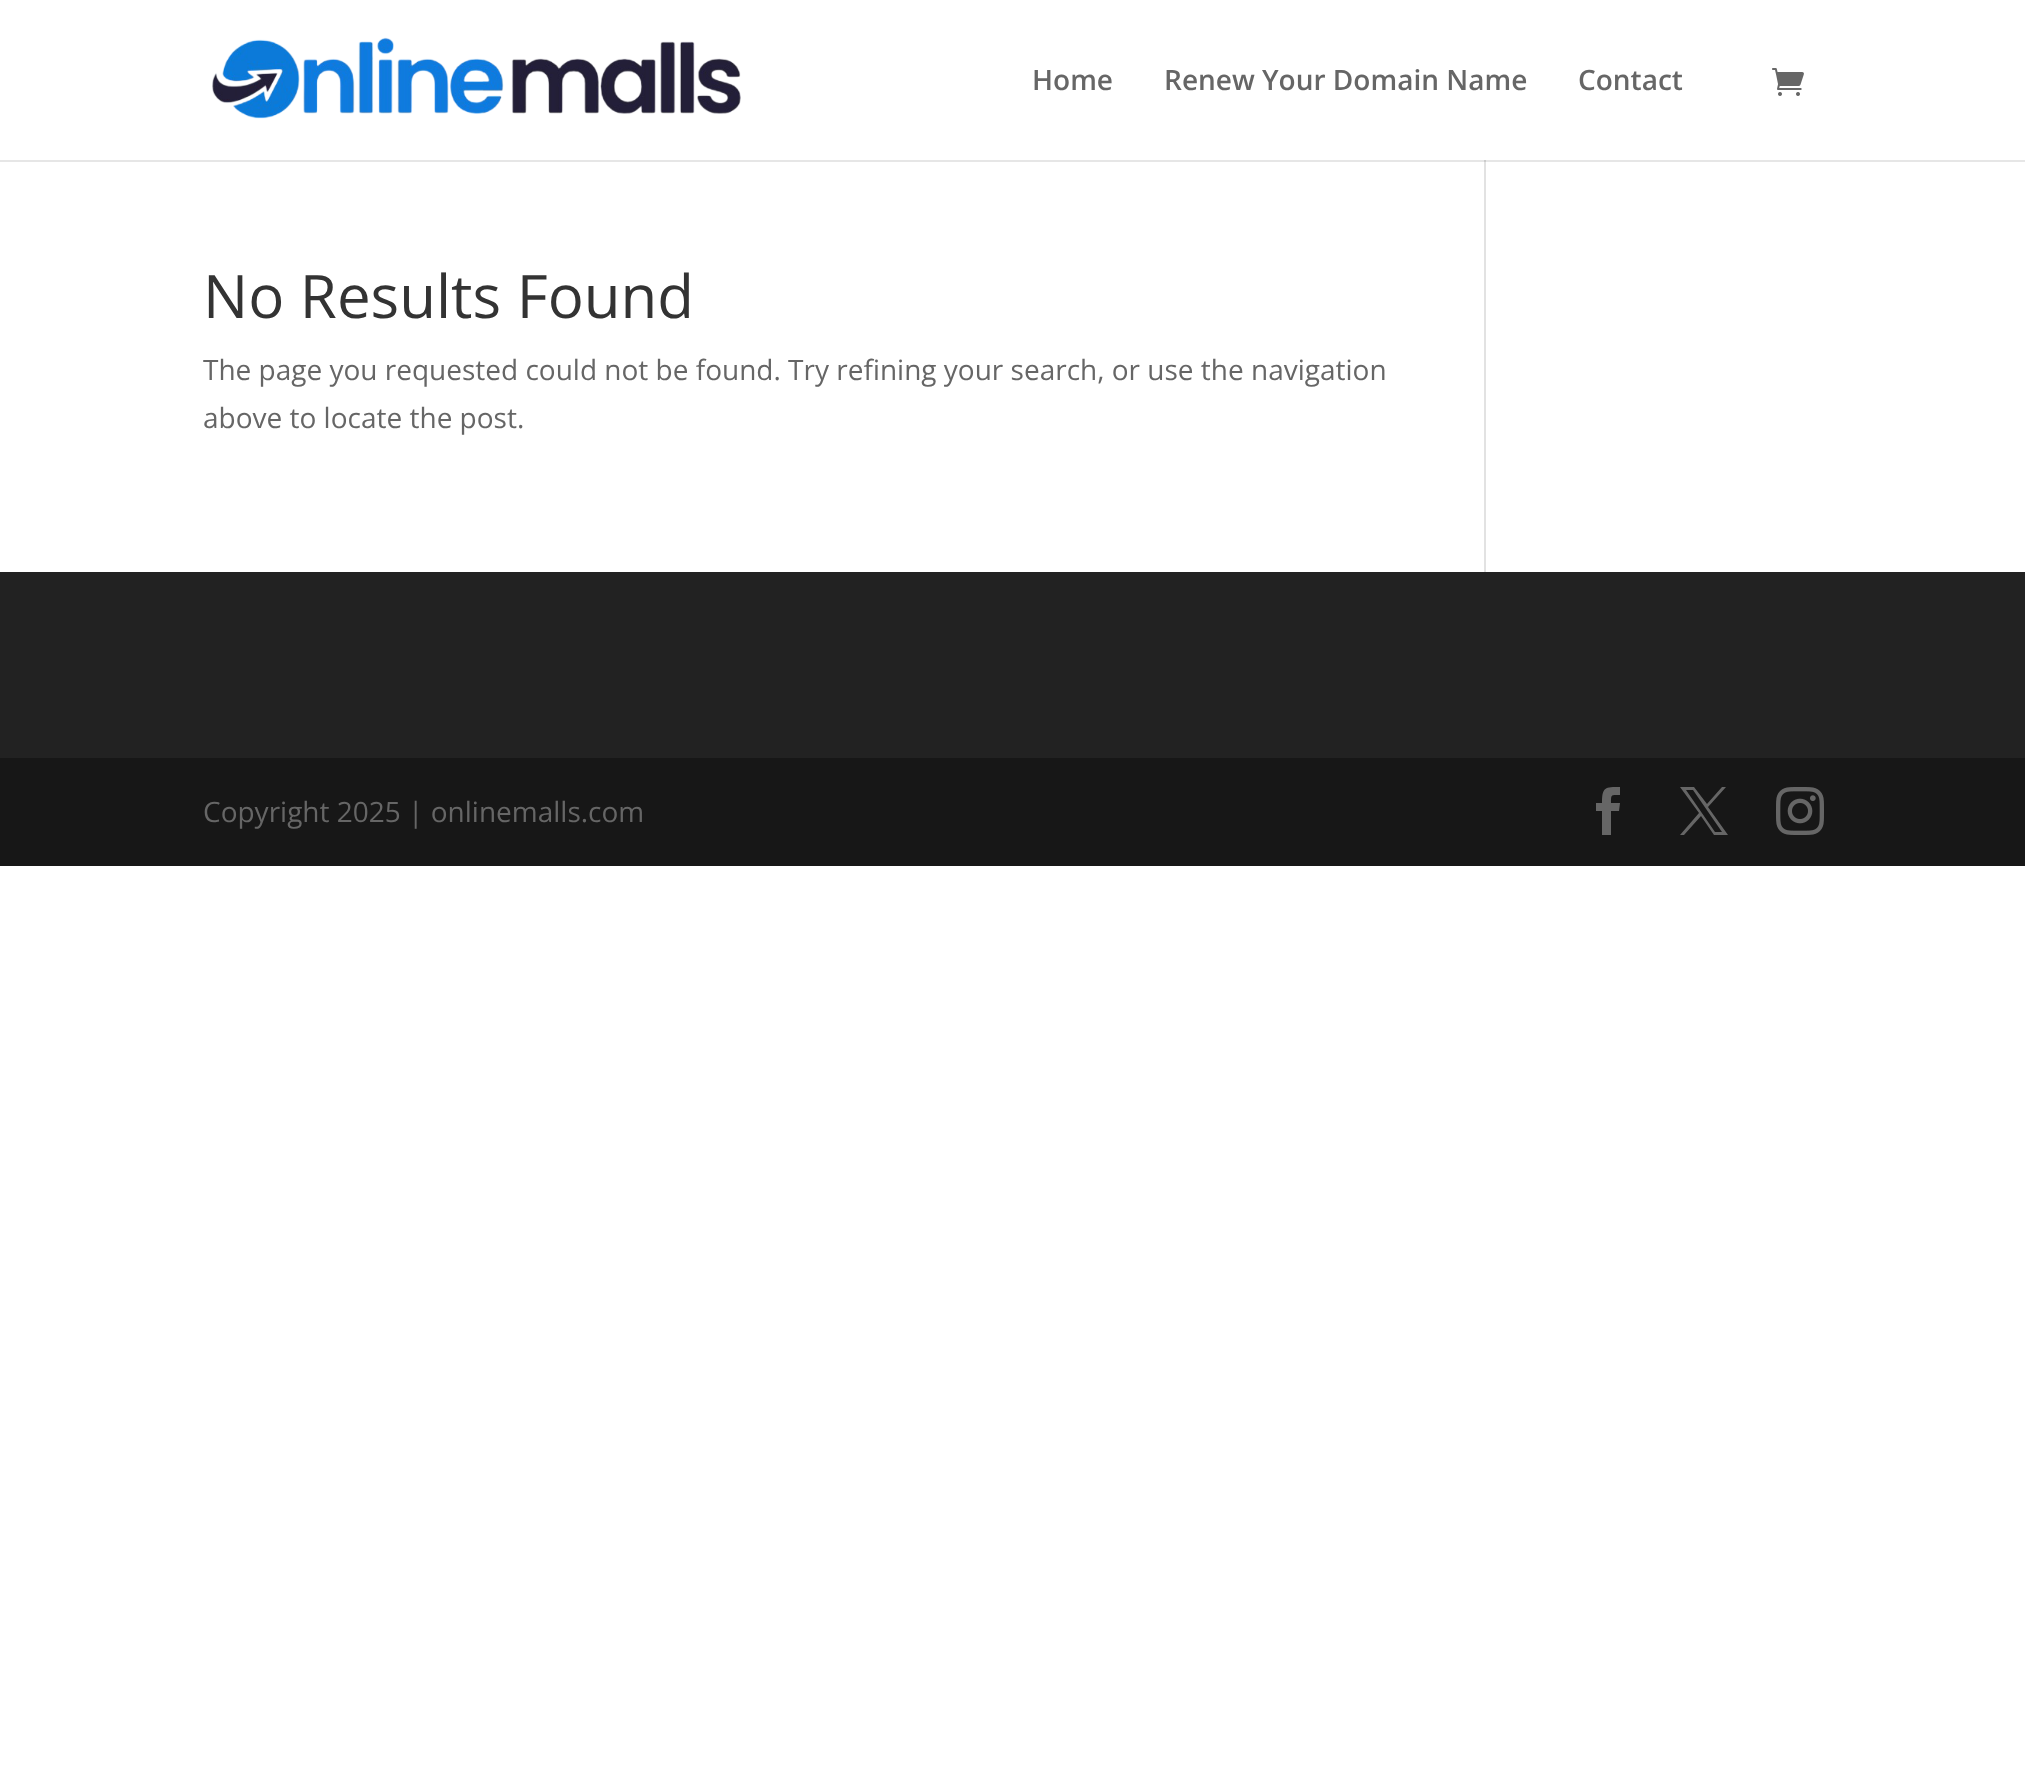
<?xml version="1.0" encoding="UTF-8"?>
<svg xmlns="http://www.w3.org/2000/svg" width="2025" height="1777">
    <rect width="100%" height="100%" fill="#FFFFFF"/>
    <rect x="0" y="160" width="2025" height="2" fill="#E6E6E6"/>
    <image x="212" y="37" width="529" height="82" href="img_01.png"/>
    <text x="1032" y="90" font-family="Open Sans" font-size="28" font-weight="600" fill="#666666">Home</text>
    <text x="1164" y="90" font-family="Open Sans" font-size="28" font-weight="600" fill="#666666">Renew Your Domain Name</text>
    <text x="1578" y="90" font-family="Open Sans" font-size="28" font-weight="600" fill="#666666">Contact</text>
    <image x="1772" y="68" width="32" height="28" href="img_02.png"/>
    <text x="203" y="318" font-family="Open Sans" font-size="60" fill="#333333">No Results Found</text>
    <text font-family="Open Sans" font-size="28" fill="#666666">
        <tspan x="203" y="380">The page you requested could not be found. Try refining your search, or use the navigation</tspan>
        <tspan x="203" y="428">above to locate the post.</tspan>
    </text>
    <rect x="1484" y="162" width="2" height="410" fill="#E2E2E2"/>
    <rect x="1484" y="160" width="2" height="2" fill="#CBCBCB"/>
    <rect x="0" y="572" width="2025" height="186" fill="#222222"/>
    <rect x="0" y="758" width="2025" height="108" fill="#171717"/>
    <text x="203" y="822" font-family="Open Sans" font-size="28" fill="#666666">Copyright 2025 | onlinemalls.com</text>
    <path d="M 1602 835 H 1611 V 811 H 1619 L 1620 803 H 1611 C 1611 794 1611 795 1620 795 V 787 C 1605 787 1602 787 1602 803 H 1596 V 811 H 1602 Z" fill="#666666"/>
    <path d="M 1680 787 L 1699 813 L 1680 835 H 1684 L 1701 816 L 1714 835 H 1728 L 1708 807 L 1726 787 H 1722 L 1707 804 L 1694 787 Z M 1686 790 H 1693 L 1722 832 H 1715 Z" fill="#666666"/>
    <image x="1776" y="787" width="48" height="48" href="img_03.png"/>
</svg>
